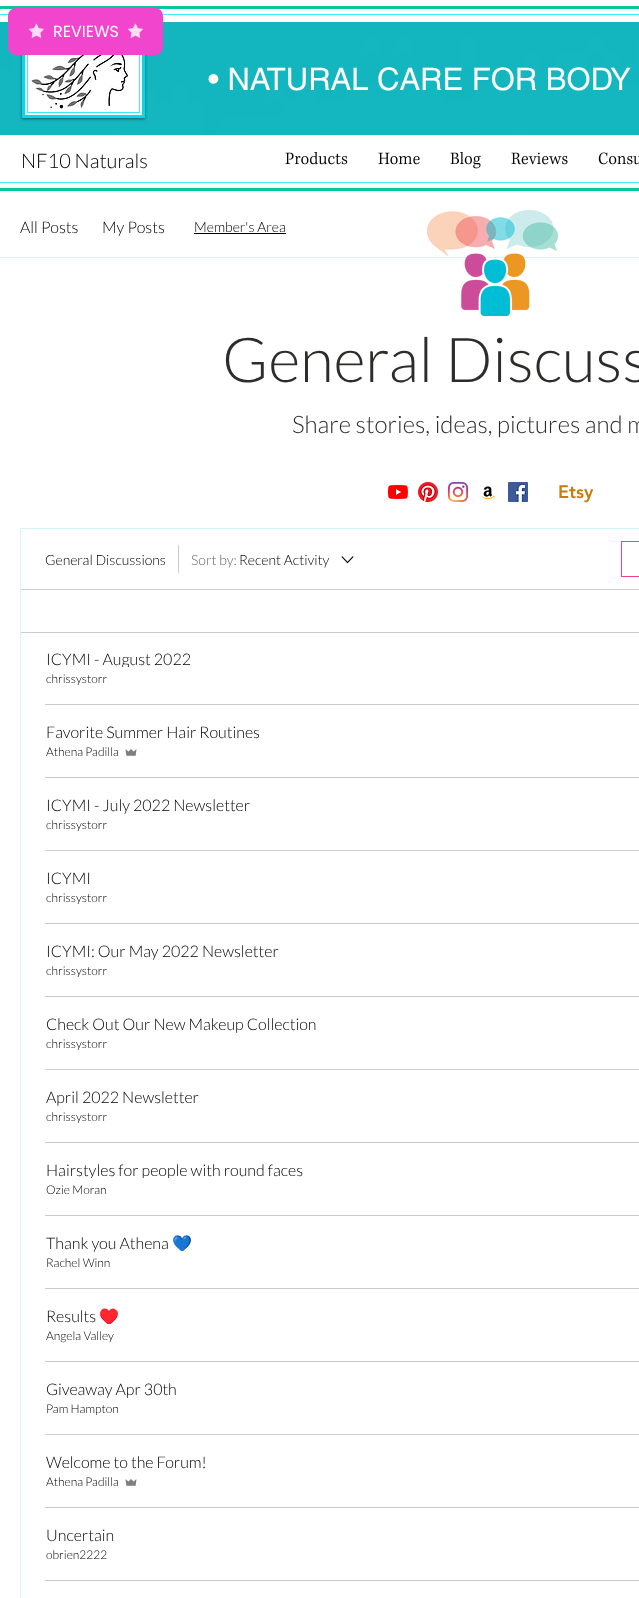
<?xml version="1.0" encoding="UTF-8"?>
<svg xmlns="http://www.w3.org/2000/svg" width="639" height="1598">
    <defs>
        <filter id="blur1" x="-50%" y="-200%" width="200%" height="500%"><feGaussianBlur stdDeviation="1.5"/></filter>
        <clipPath id="clip1"><rect x="46" y="651" width="145" height="16"/></clipPath>
        <clipPath id="clip2"><rect x="46" y="1162" width="257" height="16"/></clipPath>
        <clipPath id="clip3"><rect x="46" y="1235" width="146" height="16"/></clipPath>
        <clipPath id="clip4"><rect x="46" y="1308" width="73" height="16"/></clipPath>
    </defs>
    <rect width="100%" height="100%" fill="#FFFFFF"/>
    <rect x="0" y="6" width="639" height="3" fill="#05C8A1"/>
    <rect x="0" y="14" width="639" height="1" fill="#3CEBF8"/>
    <image x="0" y="22" width="639" height="113" href="img_02.png"/>
    <rect x="22" y="40" width="123" height="79" fill="#000000" fill-opacity="0.5" filter="url(#blur1)"/>
    <rect x="25" y="55" width="117" height="60" fill="#FFFFFF"/>
    <rect x="23.5" y="40.5" width="120" height="76" fill="none" stroke="#08D9E9" stroke-width="3"/>
    <image x="30" y="55" width="99" height="55" href="img_03.png"/>
    <rect x="27.5" y="44.5" width="112" height="68" fill="none" stroke="#3CEBF8"/>
    <rect x="8" y="8" width="155" height="47" rx="8" fill="#F245CD"/>
    <image x="29" y="23" width="15" height="15" href="img_01.png"/>
    <text x="53" y="37" font-family="Poppins" font-size="16" fill="#FFFFFF">REVIEWS</text>
    <image x="128" y="23" width="15" height="15" href="img_01.png"/>
    <rect x="0" y="188" width="639" height="3" fill="#05C8A1"/>
    <rect x="0" y="182" width="639" height="1" fill="#3CEBF8"/>
    <text x="208" y="90" font-family="helvetica" font-size="31" fill="#FFFFFF">• NATURAL CARE FOR BODY</text>
    <text x="21" y="168" font-family="Lato" font-size="20" font-weight="300" fill="#000000">NF10 Naturals</text>
    <image x="285" y="151" width="63" height="14" href="img_04.png"/>
    <image x="378" y="152" width="42" height="13" href="img_05.png"/>
    <image x="450" y="152" width="31" height="17" href="img_06.png"/>
    <image x="511" y="152" width="57" height="13" href="img_07.png"/>
    <image x="598" y="152" width="41" height="13" href="img_08.png"/>
    <rect x="0" y="257" width="639" height="1" fill="#CEF7FB"/>
    <image x="427" y="210" width="131" height="106" href="img_09.png"/>
    <text x="20" y="233" font-family="Lato" font-size="16" font-weight="300" fill="#000000">All Posts</text>
    <text x="102" y="233" font-family="Lato" font-size="16" font-weight="300" fill="#000000">My Posts</text>
    <text x="222" y="382" font-family="Lato" font-size="62" font-weight="300" fill="#2C2C2B">General Discuss</text>
    <text x="292" y="433" font-family="Lato" font-size="24" font-weight="300" fill="#2C2C2B">Share stories, ideas, pictures and m</text>
    <rect x="20.5" y="528.5" width="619" height="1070" fill="none" stroke="#CEF7FB"/>
    <text x="45" y="565" font-family="Lato" font-size="14" font-weight="300" fill="#000000">General Discussions</text>
    <rect x="178" y="545" width="1" height="28" fill="#CCCCCC"/>
    <text x="191" y="565" font-family="Lato" font-size="14" font-weight="300" fill="#666666">Sort by:</text>
    <text x="239" y="565" font-family="Lato" font-size="14" font-weight="300" fill="#000000">Recent Activity</text>
    <image x="341" y="556" width="13" height="8" href="img_10.png"/>
    <rect x="621.5" y="541.5" width="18" height="35" fill="none" stroke="#F23F96"/>
    <rect x="21" y="589" width="618" height="1" fill="#CCCCCC"/>
    <rect x="21" y="632" width="618" height="1" fill="#CCCCCC"/>
    <g clip-path="url(#clip1)">
        <text x="46" y="665" font-family="Lato" font-size="16" font-weight="300" fill="#000000">ICYMI - August 2022</text>
    </g>
    <text x="46" y="683" font-family="Lato" font-size="12" font-weight="300" fill="#000000">chrissystorr</text>
    <rect x="45" y="704" width="594" height="1" fill="#CCCCCC"/>
    <text x="46" y="738" font-family="Lato" font-size="16" font-weight="300" fill="#000000">Favorite Summer Hair Routines</text>
    <text x="46" y="756" font-family="Lato" font-size="12" font-weight="300" fill="#000000">Athena Padilla</text>
    <image x="125" y="749" width="12" height="7" href="img_11.png"/>
    <rect x="45" y="777" width="594" height="1" fill="#CCCCCC"/>
    <text x="46" y="811" font-family="Lato" font-size="16" font-weight="300" fill="#000000">ICYMI - July 2022 Newsletter</text>
    <text x="46" y="829" font-family="Lato" font-size="12" font-weight="300" fill="#000000">chrissystorr</text>
    <rect x="45" y="850" width="594" height="1" fill="#CCCCCC"/>
    <text x="46" y="884" font-family="Lato" font-size="16" font-weight="300" fill="#000000">ICYMI</text>
    <text x="46" y="902" font-family="Lato" font-size="12" font-weight="300" fill="#000000">chrissystorr</text>
    <rect x="45" y="923" width="594" height="1" fill="#CCCCCC"/>
    <text x="46" y="957" font-family="Lato" font-size="16" font-weight="300" fill="#000000">ICYMI: Our May 2022 Newsletter</text>
    <text x="46" y="975" font-family="Lato" font-size="12" font-weight="300" fill="#000000">chrissystorr</text>
    <rect x="45" y="996" width="594" height="1" fill="#CCCCCC"/>
    <text x="46" y="1030" font-family="Lato" font-size="16" font-weight="300" fill="#000000">Check Out Our New Makeup Collection</text>
    <text x="46" y="1048" font-family="Lato" font-size="12" font-weight="300" fill="#000000">chrissystorr</text>
    <rect x="45" y="1069" width="594" height="1" fill="#CCCCCC"/>
    <text x="46" y="1103" font-family="Lato" font-size="16" font-weight="300" fill="#000000">April 2022 Newsletter</text>
    <text x="46" y="1121" font-family="Lato" font-size="12" font-weight="300" fill="#000000">chrissystorr</text>
    <rect x="45" y="1142" width="594" height="1" fill="#CCCCCC"/>
    <g clip-path="url(#clip2)">
        <text x="46" y="1176" font-family="Lato" font-size="16" font-weight="300" fill="#000000">Hairstyles for people with round faces</text>
    </g>
    <text x="46" y="1194" font-family="Lato" font-size="12" font-weight="300" fill="#000000">Ozie Moran</text>
    <rect x="45" y="1215" width="594" height="1" fill="#CCCCCC"/>
    <text x="46" y="1249" font-family="Lato" font-size="16" font-weight="300" fill="#000000">Thank you Athena</text>
    <g clip-path="url(#clip3)">
        <text x="172" y="1249" font-family="Noto Color Emoji" font-size="16" fill="#000000">💙</text>
    </g>
    <text x="46" y="1267" font-family="Lato" font-size="12" font-weight="300" fill="#000000">Rachel Winn</text>
    <rect x="45" y="1288" width="594" height="1" fill="#CCCCCC"/>
    <text x="46" y="1322" font-family="Lato" font-size="16" font-weight="300" fill="#000000">Results</text>
    <g clip-path="url(#clip4)">
        <text x="99" y="1322" font-family="Noto Color Emoji" font-size="16" fill="#000000">♥️</text>
    </g>
    <text x="46" y="1340" font-family="Lato" font-size="12" font-weight="300" fill="#000000">Angela Valley</text>
    <rect x="45" y="1361" width="594" height="1" fill="#CCCCCC"/>
    <text x="46" y="1395" font-family="Lato" font-size="16" font-weight="300" fill="#000000">Giveaway Apr 30th</text>
    <text x="46" y="1413" font-family="Lato" font-size="12" font-weight="300" fill="#000000">Pam Hampton</text>
    <rect x="45" y="1434" width="594" height="1" fill="#CCCCCC"/>
    <text x="46" y="1468" font-family="Lato" font-size="16" font-weight="300" fill="#000000">Welcome to the Forum!</text>
    <text x="46" y="1486" font-family="Lato" font-size="12" font-weight="300" fill="#000000">Athena Padilla</text>
    <image x="125" y="1479" width="12" height="7" href="img_11.png"/>
    <rect x="45" y="1507" width="594" height="1" fill="#CCCCCC"/>
    <text x="46" y="1541" font-family="Lato" font-size="16" font-weight="300" fill="#000000">Uncertain</text>
    <text x="46" y="1559" font-family="Lato" font-size="12" font-weight="300" fill="#000000">obrien2222</text>
    <rect x="45" y="1580" width="594" height="1" fill="#CCCCCC"/>
    <text x="194" y="232" font-family="Lato" font-size="14" font-weight="300" fill="#000000">Member's Area</text>
    <rect x="194" y="233" width="92" height="1" fill="#000000"/>
    <image x="388" y="484" width="20" height="16" href="img_12.png"/>
    <image x="418" y="482" width="20" height="20" href="img_13.png"/>
    <image x="448" y="482" width="20" height="20" href="img_14.png"/>
    <image x="481" y="486" width="14" height="14" href="img_15.png"/>
    <image x="508" y="482" width="20" height="20" href="img_16.png"/>
    <text x="558" y="498" font-family="'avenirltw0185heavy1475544'" font-size="18" font-weight="900" fill="#C77C0C">Etsy</text>
</svg>
